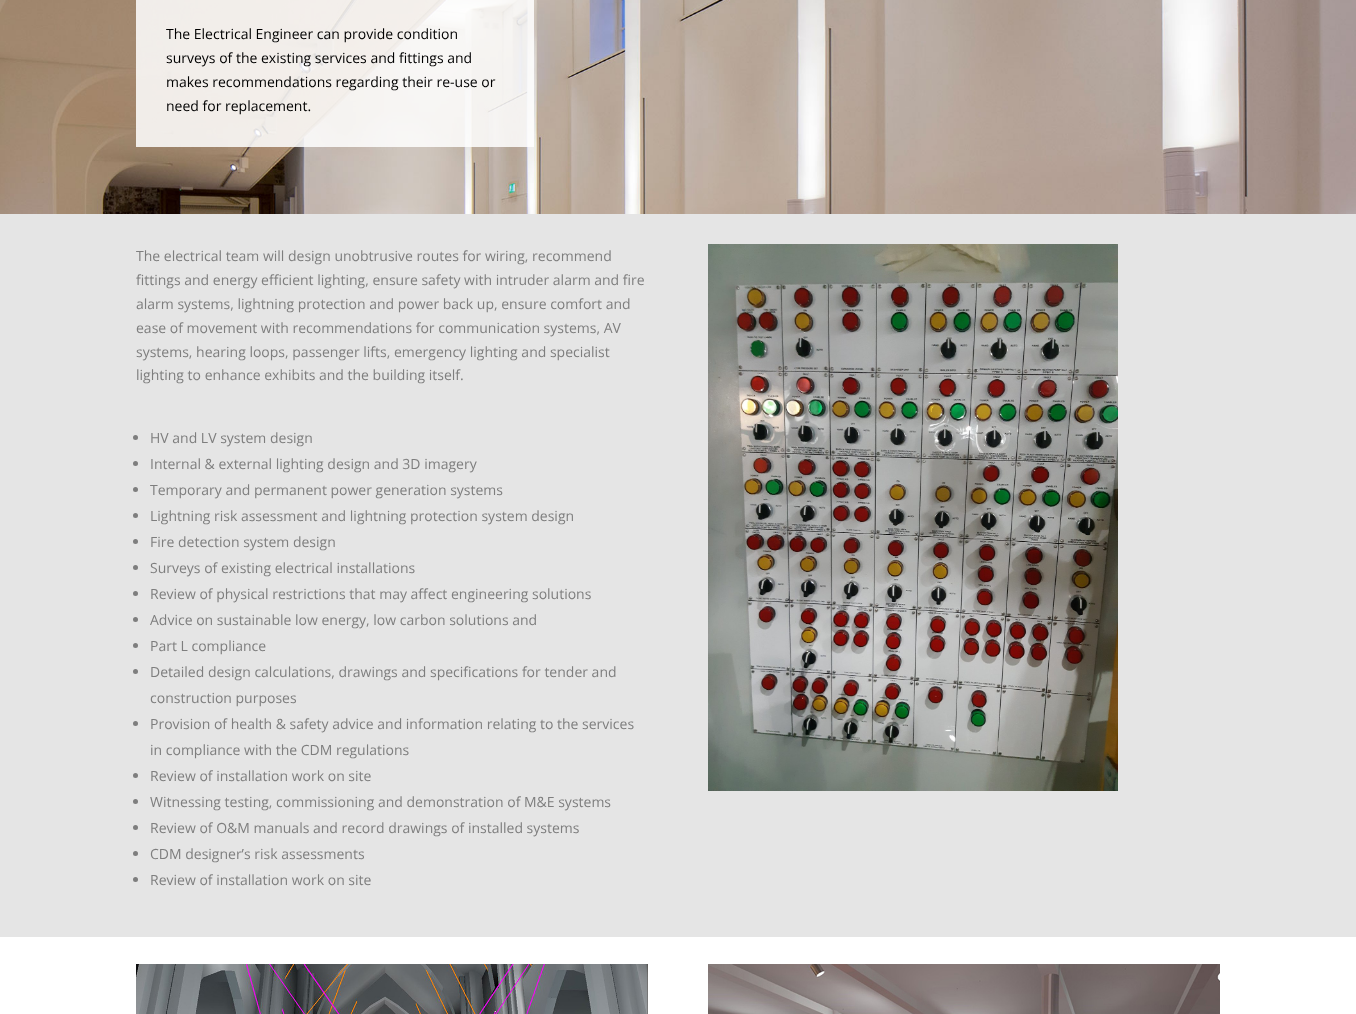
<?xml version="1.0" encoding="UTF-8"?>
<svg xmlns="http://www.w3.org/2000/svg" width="1356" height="1014">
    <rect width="100%" height="100%" fill="#FFFFFF"/>
    <image x="0" y="0" width="1356" height="214" href="img_01.png"/>
    <rect x="136" y="0" width="398" height="147" fill="#FFFFFF" fill-opacity="0.85"/>
    <text font-family="Open Sans" font-size="14" fill="#000000">
        <tspan x="166" y="39">The Electrical Engineer can provide condition</tspan>
        <tspan x="166" y="63">surveys of the existing services and fittings and</tspan>
        <tspan x="166" y="87">makes recommendations regarding their re-use or</tspan>
        <tspan x="166" y="111">need for replacement.</tspan>
    </text>
    <rect x="0" y="214" width="1356" height="723" fill="#E5E5E5"/>
    <text font-family="Open Sans" font-size="14" fill="#7E7E7E">
        <tspan x="136" y="261">The electrical team will design unobtrusive routes for wiring, recommend</tspan>
        <tspan x="136" y="285">fittings and energy efficient lighting, ensure safety with intruder alarm and fire</tspan>
        <tspan x="136" y="309">alarm systems, lightning protection and power back up, ensure comfort and</tspan>
        <tspan x="136" y="333">ease of movement with recommendations for communication systems, AV</tspan>
        <tspan x="136" y="357">systems, hearing loops, passenger lifts, emergency lighting and specialist</tspan>
        <tspan x="136" y="380">lighting to enhance exhibits and the building itself.</tspan>
    </text>
    <circle cx="135.5" cy="437.5" r="2.5" fill="#7E7E7E"/>
    <text x="150" y="443" font-family="Open Sans" font-size="14" fill="#7E7E7E">HV and LV system design</text>
    <circle cx="135.5" cy="463.5" r="2.5" fill="#7E7E7E"/>
    <text x="150" y="469" font-family="Open Sans" font-size="14" fill="#7E7E7E">Internal &amp; external lighting design and 3D imagery</text>
    <circle cx="135.5" cy="489.5" r="2.5" fill="#7E7E7E"/>
    <text x="150" y="495" font-family="Open Sans" font-size="14" fill="#7E7E7E">Temporary and permanent power generation systems</text>
    <circle cx="135.5" cy="515.5" r="2.5" fill="#7E7E7E"/>
    <text x="150" y="521" font-family="Open Sans" font-size="14" fill="#7E7E7E">Lightning risk assessment and lightning protection system design</text>
    <circle cx="135.5" cy="541.5" r="2.5" fill="#7E7E7E"/>
    <text x="150" y="547" font-family="Open Sans" font-size="14" fill="#7E7E7E">Fire detection system design</text>
    <circle cx="135.5" cy="567.5" r="2.5" fill="#7E7E7E"/>
    <text x="150" y="573" font-family="Open Sans" font-size="14" fill="#7E7E7E">Surveys of existing electrical installations</text>
    <circle cx="135.5" cy="593.5" r="2.5" fill="#7E7E7E"/>
    <text x="150" y="599" font-family="Open Sans" font-size="14" fill="#7E7E7E">Review of physical restrictions that may affect engineering solutions</text>
    <circle cx="135.5" cy="619.5" r="2.5" fill="#7E7E7E"/>
    <text x="150" y="625" font-family="Open Sans" font-size="14" fill="#7E7E7E">Advice on sustainable low energy, low carbon solutions and</text>
    <circle cx="135.5" cy="645.5" r="2.5" fill="#7E7E7E"/>
    <text x="150" y="651" font-family="Open Sans" font-size="14" fill="#7E7E7E">Part L compliance</text>
    <circle cx="135.5" cy="671.5" r="2.5" fill="#7E7E7E"/>
    <text font-family="Open Sans" font-size="14" fill="#7E7E7E">
        <tspan x="150" y="677">Detailed design calculations, drawings and specifications for tender and</tspan>
        <tspan x="150" y="703">construction purposes</tspan>
    </text>
    <circle cx="135.5" cy="723.5" r="2.5" fill="#7E7E7E"/>
    <text font-family="Open Sans" font-size="14" fill="#7E7E7E">
        <tspan x="150" y="729">Provision of health &amp; safety advice and information relating to the services</tspan>
        <tspan x="150" y="755">in compliance with the CDM regulations</tspan>
    </text>
    <circle cx="135.5" cy="775.5" r="2.5" fill="#7E7E7E"/>
    <text x="150" y="781" font-family="Open Sans" font-size="14" fill="#7E7E7E">Review of installation work on site</text>
    <circle cx="135.5" cy="801.5" r="2.5" fill="#7E7E7E"/>
    <text x="150" y="807" font-family="Open Sans" font-size="14" fill="#7E7E7E">Witnessing testing, commissioning and demonstration of M&amp;E systems</text>
    <circle cx="135.5" cy="827.5" r="2.5" fill="#7E7E7E"/>
    <text x="150" y="833" font-family="Open Sans" font-size="14" fill="#7E7E7E">Review of O&amp;M manuals and record drawings of installed systems</text>
    <circle cx="135.5" cy="853.5" r="2.5" fill="#7E7E7E"/>
    <text x="150" y="859" font-family="Open Sans" font-size="14" fill="#7E7E7E">CDM designer’s risk assessments</text>
    <circle cx="135.5" cy="879.5" r="2.5" fill="#7E7E7E"/>
    <text x="150" y="885" font-family="Open Sans" font-size="14" fill="#7E7E7E">Review of installation work on site</text>
    <image x="708" y="244" width="410" height="547" href="img_02.png"/>
    <image x="136" y="964" width="512" height="50" href="img_03.png"/>
    <image x="708" y="964" width="512" height="50" href="img_04.png"/>
</svg>
